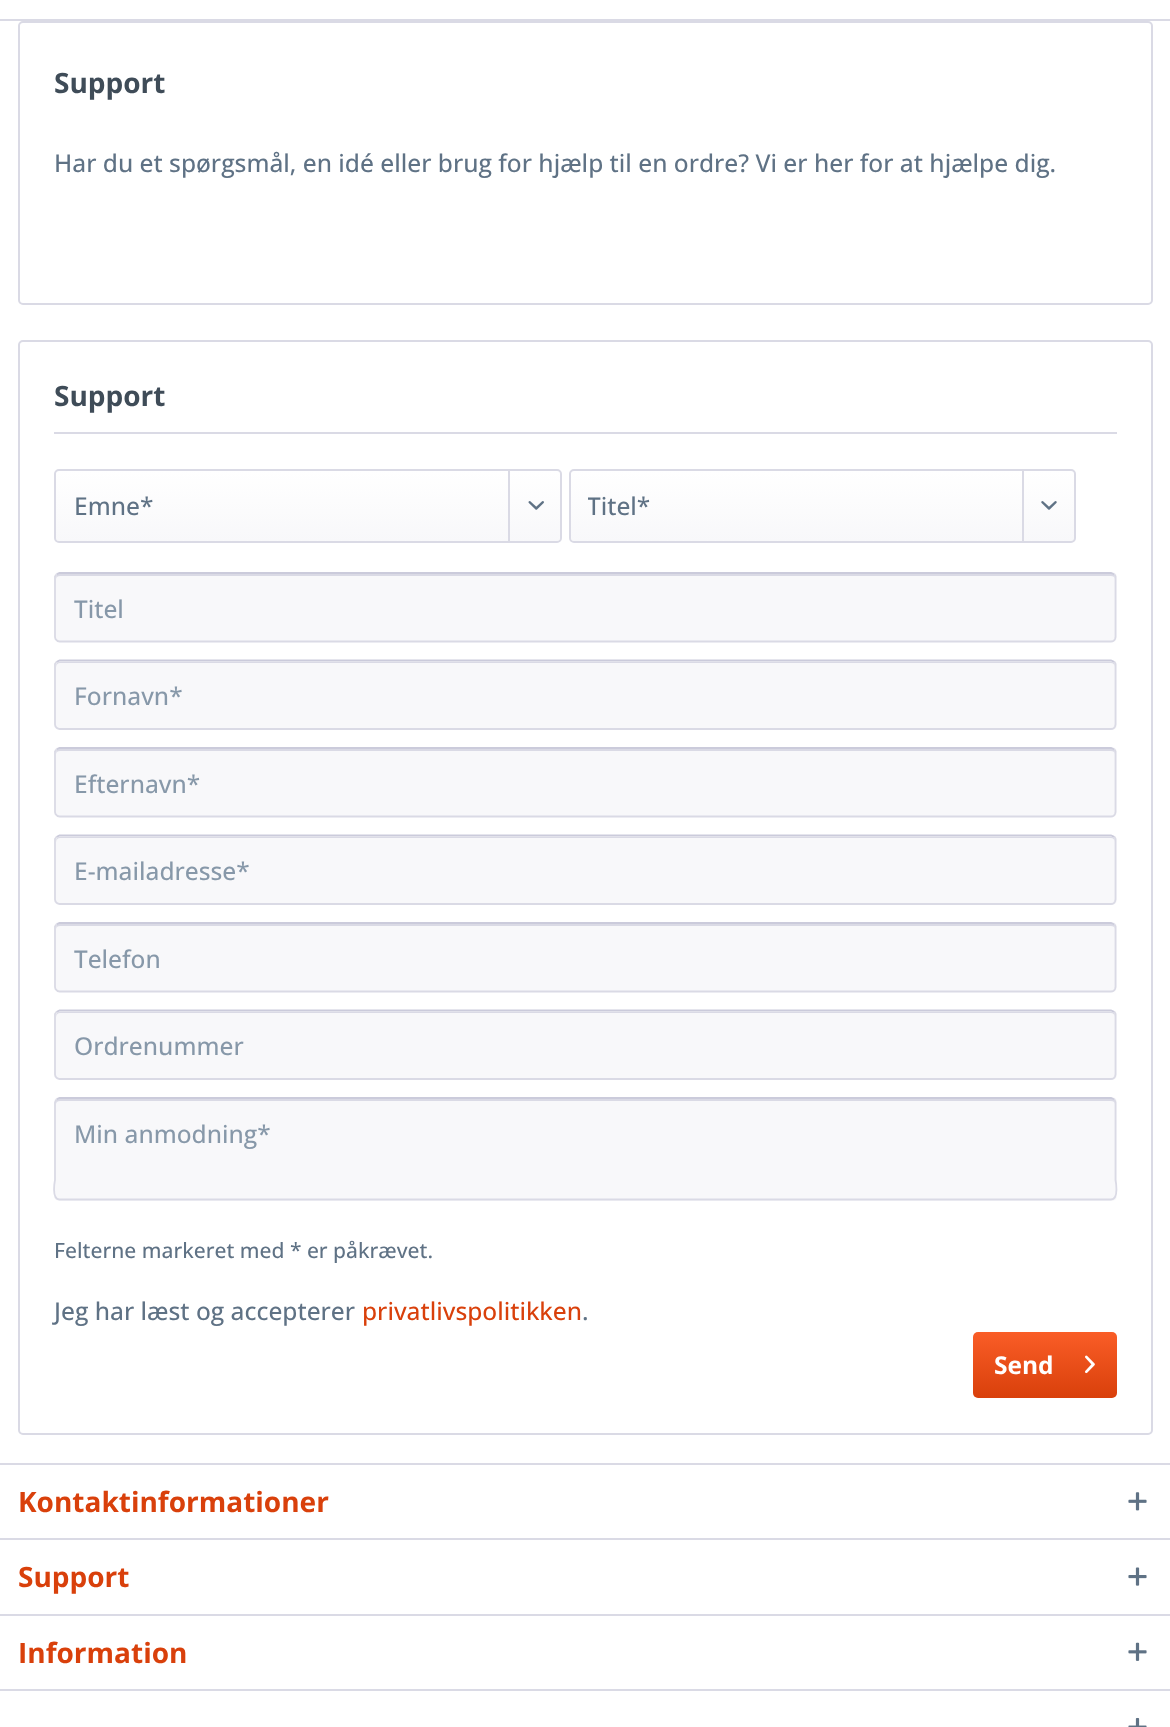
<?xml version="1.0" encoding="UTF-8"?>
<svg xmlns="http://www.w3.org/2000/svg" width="1170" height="1727">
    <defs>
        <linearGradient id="g1" gradientUnits="userSpaceOnUse" x1="308" y1="471" x2="308" y2="541"><stop offset="0" stop-color="#FFFFFF"/><stop offset="1" stop-color="#F8F8FA"/></linearGradient>
        <linearGradient id="g2" gradientUnits="userSpaceOnUse" x1="823" y1="471" x2="823" y2="541"><stop offset="0" stop-color="#FFFFFF"/><stop offset="1" stop-color="#F8F8FA"/></linearGradient>
        <clipPath id="clip1"><rect x="588" y="471" width="417" height="70"/></clipPath>
        <clipPath id="clip2"><rect x="74" y="592" width="1023" height="33"/></clipPath>
        <clipPath id="clip3"><rect x="74" y="942" width="1023" height="33"/></clipPath>
        <linearGradient id="g3" gradientUnits="userSpaceOnUse" x1="1045" y1="1332" x2="1045" y2="1398"><stop offset="0" stop-color="#FA5D27"/><stop offset="1" stop-color="#D9400B"/></linearGradient>
    </defs>
    <rect width="100%" height="100%" fill="#FFFFFF"/>
    <rect x="0" y="19" width="1170" height="2" fill="#DADAE5"/>
    <rect x="19" y="22" width="1133" height="282" rx="4" fill="none" stroke="#DADAE5" stroke-width="2"/>
    <text x="54" y="93" font-family="Open Sans" font-size="28" font-weight="700" fill="#3F4C58">Support</text>
    <text x="54" y="172" font-family="Open Sans" font-size="24.5" font-weight="500" fill="#5F7285">Har du et spørgsmål, en idé eller brug for hjælp til en ordre? Vi er her for at hjælpe dig.</text>
    <rect x="19" y="341" width="1133" height="1093" rx="4" fill="none" stroke="#DADAE5" stroke-width="2"/>
    <rect x="54" y="432" width="1063" height="2" fill="#DADAE5"/>
    <text x="54" y="406" font-family="Open Sans" font-size="28" font-weight="700" fill="#3F4C58">Support</text>
    <rect x="56" y="471" width="504" height="70" rx="4" fill="url(#g1)"/>
    <rect x="55" y="470" width="506" height="72" rx="4" fill="none" stroke="#DADAE5" stroke-width="2"/>
    <text x="74" y="515" font-family="Open Sans" font-size="24.5" font-weight="500" fill="#5F7285">Emne*</text>
    <rect x="508" y="471" width="2" height="70" fill="#DADAE5"/>
    <image x="528" y="501" width="16" height="9" href="img_01.png"/>
    <rect x="571" y="471" width="504" height="70" rx="4" fill="url(#g2)"/>
    <rect x="570" y="470" width="505" height="72" rx="4" fill="none" stroke="#DADAE5" stroke-width="2"/>
    <g clip-path="url(#clip1)">
        <text x="587" y="515" font-family="Open Sans" font-size="24.5" font-weight="500" fill="#5F7285">Titel*</text>
    </g>
    <rect x="1022" y="471" width="2" height="70" fill="#DADAE5"/>
    <image x="1041" y="501" width="16" height="9" href="img_02.png"/>
    <rect x="54" y="572" width="1063" height="70" rx="5" fill="#F8F8FA"/>
    <path d="M 60 576 H 1111 C 1113 576 1115 577 1115 579 C 1115 576 1114 574 1111 574 H 60 C 57 574 56 576 56 579 C 56 577 58 576 60 576 Z" fill="#DADAE5"/>
    <path d="M 56.5 574.5 L 59.5 573 H 1111 L 1114.5 574.5" fill="none" stroke="#CBCBDB" stroke-width="1.8"/>
    <path d="M 1114.5 574.5 L 1115.5 576.5 V 637 L 1115 639 C 1114.5 640.5 1113 641.5 1111 641.5 H 59.5 C 58 641.5 56.5 640.5 55.5 639 L 55 637 V 576.5 L 56.5 574.5" fill="none" stroke="#DADAE5" stroke-width="1.8"/>
    <g clip-path="url(#clip2)">
        <text x="74" y="618" font-family="Open Sans" font-size="24.5" font-weight="500" fill="#8798A9">Titel</text>
    </g>
    <rect x="54" y="660" width="1063" height="70" rx="5" fill="#F8F8FA"/>
    <path d="M 60 663 H 1111 C 1113 663 1115 665 1115 667 C 1115 664 1114 662 1111 662 H 60 C 57 662 56 664 56 667 C 56 665 58 663 60 663 Z" fill="#DADAE5"/>
    <path d="M 56.5 662 L 59.5 660.5 H 1111 L 1114.5 662" fill="none" stroke="#CBCBDB" stroke-width="1.8"/>
    <path d="M 1114.5 662 L 1115.5 664 V 724.5 L 1115 726.5 C 1114.5 728 1113 729 1111 729 H 59.5 C 58 729 56.5 728 55.5 726.5 L 55 724.5 V 664 L 56.5 662" fill="none" stroke="#DADAE5" stroke-width="1.8"/>
    <text x="74" y="705" font-family="Open Sans" font-size="24.5" font-weight="500" fill="#8798A9">Fornavn*</text>
    <rect x="54" y="747" width="1063" height="70" rx="5" fill="#F8F8FA"/>
    <path d="M 60 751 H 1111 C 1113 751 1115 752 1115 754 C 1115 751 1114 749 1111 749 H 60 C 57 749 56 751 56 754 C 56 752 58 751 60 751 Z" fill="#DADAE5"/>
    <path d="M 56.5 749.5 L 59.5 748 H 1111 L 1114.5 749.5" fill="none" stroke="#CBCBDB" stroke-width="1.8"/>
    <path d="M 1114.5 749.5 L 1115.5 751.5 V 812 L 1115 814 C 1114.5 815.5 1113 816.5 1111 816.5 H 59.5 C 58 816.5 56.5 815.5 55.5 814 L 55 812 V 751.5 L 56.5 749.5" fill="none" stroke="#DADAE5" stroke-width="1.8"/>
    <text x="74" y="793" font-family="Open Sans" font-size="24.5" font-weight="500" fill="#8798A9">Efternavn*</text>
    <rect x="54" y="835" width="1063" height="70" rx="5" fill="#F8F8FA"/>
    <path d="M 60 838 H 1111 C 1113 838 1115 840 1115 842 C 1115 839 1114 837 1111 837 H 60 C 57 837 56 839 56 842 C 56 840 58 838 60 838 Z" fill="#DADAE5"/>
    <path d="M 56.5 837 L 59.5 835.5 H 1111 L 1114.5 837" fill="none" stroke="#CBCBDB" stroke-width="1.8"/>
    <path d="M 1114.5 837 L 1115.5 839 V 899.5 L 1115 901.5 C 1114.5 903 1113 904 1111 904 H 59.5 C 58 904 56.5 903 55.5 901.5 L 55 899.5 V 839 L 56.5 837" fill="none" stroke="#DADAE5" stroke-width="1.8"/>
    <text x="74" y="880" font-family="Open Sans" font-size="24.5" font-weight="500" fill="#8798A9">E-mailadresse*</text>
    <rect x="54" y="922" width="1063" height="70" rx="5" fill="#F8F8FA"/>
    <path d="M 60 926 H 1111 C 1113 926 1115 927 1115 929 C 1115 926 1114 924 1111 924 H 60 C 57 924 56 926 56 929 C 56 927 58 926 60 926 Z" fill="#DADAE5"/>
    <path d="M 56.5 924.5 L 59.5 923 H 1111 L 1114.5 924.5" fill="none" stroke="#CBCBDB" stroke-width="1.8"/>
    <path d="M 1114.5 924.5 L 1115.5 926.5 V 987 L 1115 989 C 1114.5 990.5 1113 991.5 1111 991.5 H 59.5 C 58 991.5 56.5 990.5 55.5 989 L 55 987 V 926.5 L 56.5 924.5" fill="none" stroke="#DADAE5" stroke-width="1.8"/>
    <g clip-path="url(#clip3)">
        <text x="74" y="968" font-family="Open Sans" font-size="24.5" font-weight="500" fill="#8798A9">Telefon</text>
    </g>
    <rect x="54" y="1010" width="1063" height="70" rx="5" fill="#F8F8FA"/>
    <path d="M 60 1013 H 1111 C 1113 1013 1115 1015 1115 1017 C 1115 1014 1114 1012 1111 1012 H 60 C 57 1012 56 1014 56 1017 C 56 1015 58 1013 60 1013 Z" fill="#DADAE5"/>
    <path d="M 56.5 1012 L 59.5 1010.5 H 1111 L 1114.5 1012" fill="none" stroke="#CBCBDB" stroke-width="1.8"/>
    <path d="M 1114.5 1012 L 1115.5 1014 V 1074.5 L 1115 1076.5 C 1114.5 1078 1113 1079 1111 1079 H 59.5 C 58 1079 56.5 1078 55.5 1076.5 L 55 1074.5 V 1014 L 56.5 1012" fill="none" stroke="#DADAE5" stroke-width="1.8"/>
    <text x="74" y="1055" font-family="Open Sans" font-size="24.5" font-weight="500" fill="#8798A9">Ordrenummer</text>
    <rect x="54" y="1097" width="1063" height="104" rx="5" fill="#F8F8FA"/>
    <path d="M 60 1101 H 1111 C 1113 1101 1115 1102 1115 1104 C 1115 1101 1114 1099 1111 1099 H 60 C 57 1099 56 1101 56 1104 C 56 1102 58 1101 60 1101 Z" fill="#DADAE5"/>
    <path d="M 56.5 1099.5 L 59.5 1098 H 1111 L 1114.5 1099.5" fill="none" stroke="#CBCBDB" stroke-width="1.8"/>
    <path d="M 1114.5 1099.5 L 1115.5 1102.5 V 1180 C 1115.5 1180 1119.5 1199.5 1111 1199.5 H 59.5 C 51 1199.5 55 1180 55 1180 V 1102.5 L 56.5 1099.5" fill="none" stroke="#DADAE5" stroke-width="1.8"/>
    <text x="74" y="1143" font-family="Open Sans" font-size="24.5" font-weight="500" fill="#8798A9">Min anmodning*</text>
    <text x="54" y="1258" font-family="Open Sans" font-size="21" font-weight="500" fill="#5F7285">Felterne markeret med * er påkrævet.</text>
    <text x="54" y="1320" font-family="Open Sans" font-size="24.5" font-weight="500" fill="#5F7285">Jeg har læst og accepterer</text>
    <text x="362" y="1320" font-family="Open Sans" font-size="24.5" font-weight="500" fill="#D9400B">privatlivspolitikken</text>
    <text x="582" y="1320" font-family="Open Sans" font-size="24.5" font-weight="500" fill="#5F7285">.</text>
    <rect x="973" y="1332" width="144" height="66" rx="5" fill="url(#g3)"/>
    <text x="994" y="1374" font-family="Open Sans" font-size="24.5" font-weight="700" fill="#FFFFFF">Send</text>
    <image x="1085" y="1355" width="10" height="19" href="img_03.png"/>
    <rect x="0" y="1463" width="1170" height="2" fill="#DADAE5"/>
    <text x="18" y="1512" font-family="Open Sans" font-size="28" font-weight="700" fill="#D9400B">Kontaktinformationer</text>
    <image x="1128" y="1492" width="19" height="19" href="img_04.png"/>
    <rect x="0" y="1538" width="1170" height="2" fill="#DADAE5"/>
    <text x="18" y="1587" font-family="Open Sans" font-size="28" font-weight="700" fill="#D9400B">Support</text>
    <image x="1128" y="1567" width="19" height="19" href="img_05.png"/>
    <rect x="0" y="1614" width="1170" height="2" fill="#DADAE5"/>
    <text x="18" y="1663" font-family="Open Sans" font-size="28" font-weight="700" fill="#D9400B">Information</text>
    <image x="1128" y="1642" width="19" height="19" href="img_06.png"/>
    <rect x="0" y="1689" width="1170" height="2" fill="#DADAE5"/>
    <image x="1128" y="1717" width="19" height="10" href="img_07.png"/>
</svg>
